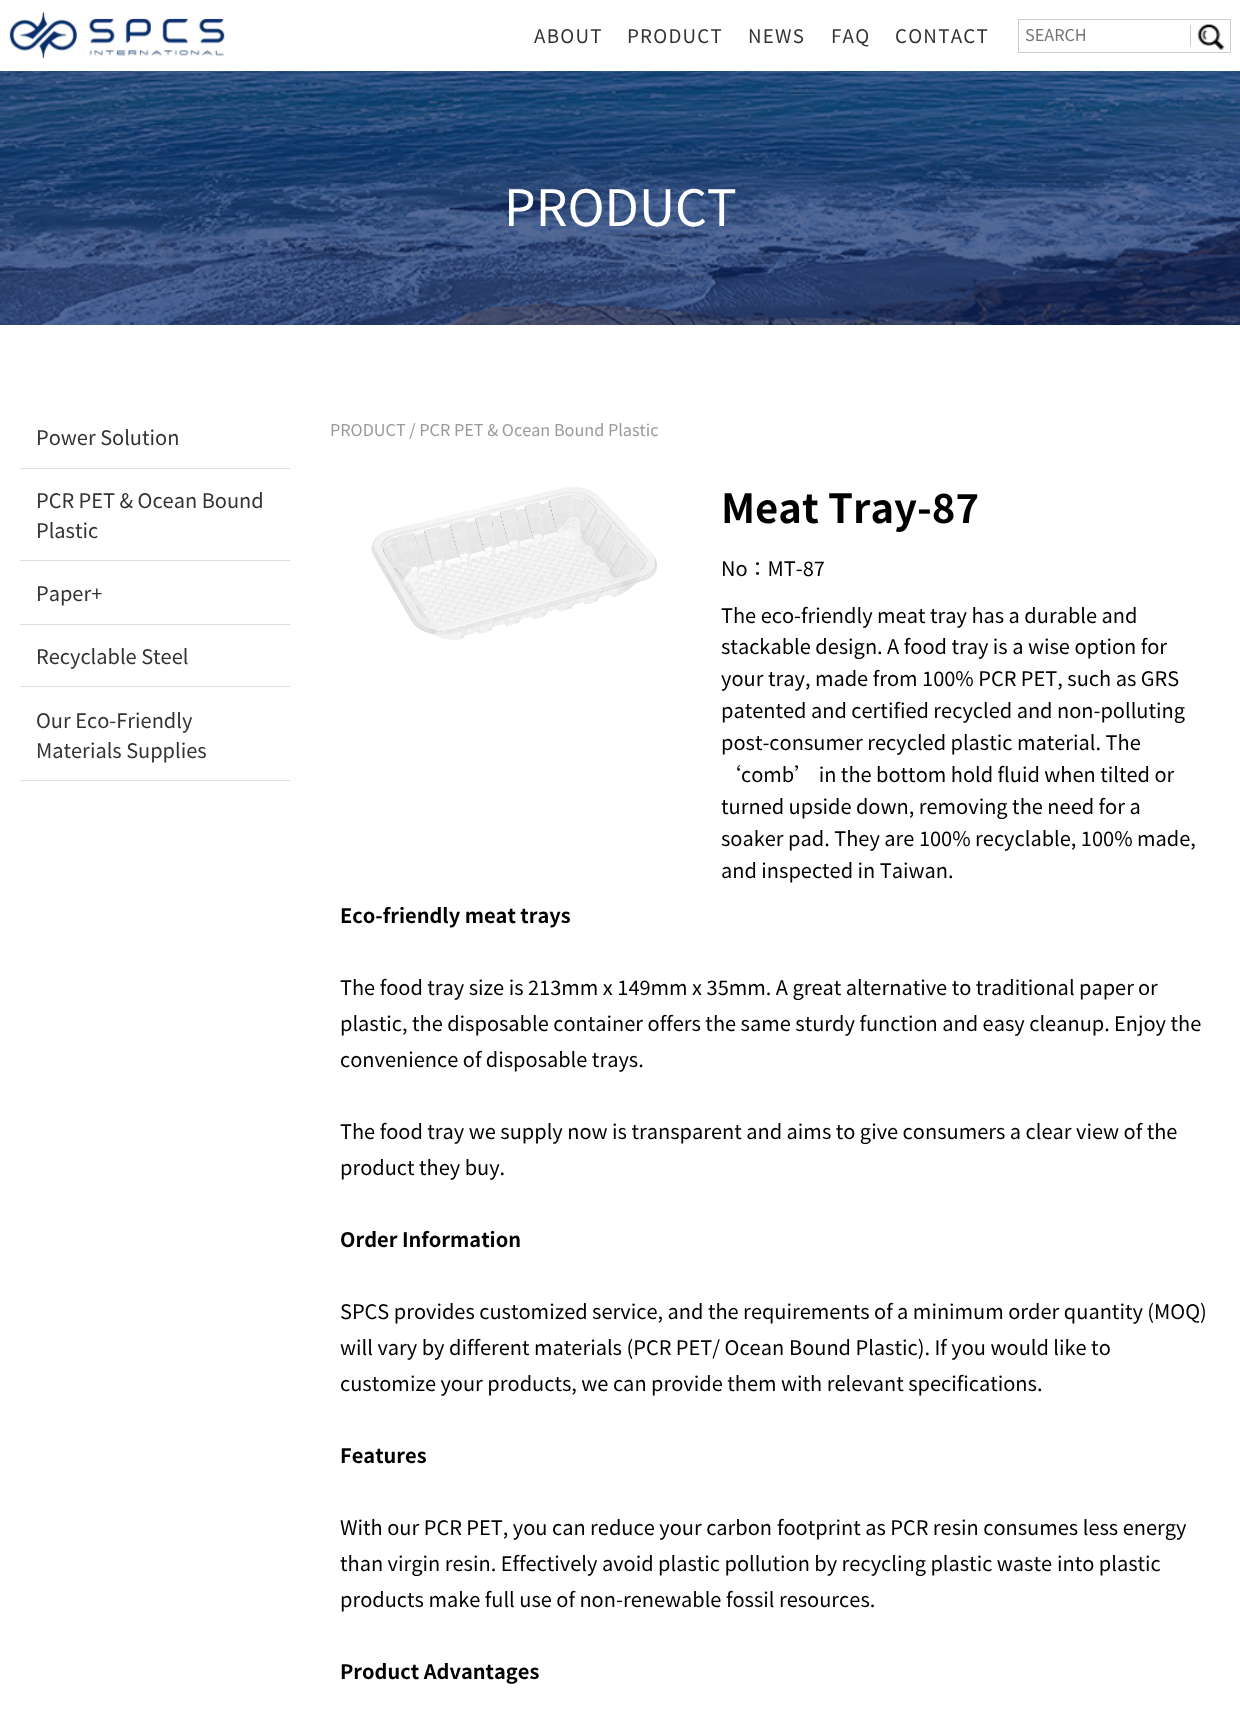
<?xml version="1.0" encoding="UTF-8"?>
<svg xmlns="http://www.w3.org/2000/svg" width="1240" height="1714">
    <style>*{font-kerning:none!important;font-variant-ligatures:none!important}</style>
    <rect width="100%" height="100%" fill="#FFFFFF"/>
    <image x="9" y="12" width="216" height="47" href="img_01.png"/>
    <text x="534" y="43" font-family="Noto Sans TC" font-size="18.75" letter-spacing="1.25" fill="#333333">ABOUT</text>
    <text x="627" y="43" font-family="Noto Sans TC" font-size="18.75" letter-spacing="1.25" fill="#333333">PRODUCT</text>
    <text x="748" y="43" font-family="Noto Sans TC" font-size="18.75" letter-spacing="1.25" fill="#333333">NEWS</text>
    <text x="831" y="43" font-family="Noto Sans TC" font-size="18.75" letter-spacing="1.25" fill="#333333">FAQ</text>
    <text x="895" y="43" font-family="Noto Sans TC" font-size="18.75" letter-spacing="1.25" fill="#333333">CONTACT</text>
    <rect x="1018.5" y="19.5" width="212" height="33" fill="none" stroke="#CCCCCC"/>
    <text x="1025" y="41" font-family="Noto Sans TC" font-size="16.25" fill="#757575">SEARCH</text>
    <rect x="1190" y="25" width="1" height="21" fill="#CCCCCC"/>
    <image x="1197" y="24" width="28" height="26" href="img_02.png"/>
    <image x="0" y="71" width="1240" height="254" href="img_03.png"/>
    <text x="504" y="226" font-family="Noto Sans TC" font-size="50" fill="#FFFFFF">PRODUCT</text>
    <rect x="20" y="468" width="270" height="1" fill="#DDDDDD"/>
    <text x="36" y="445" font-family="Noto Sans TC" font-size="20" fill="#333333">Power Solution</text>
    <rect x="20" y="560" width="270" height="1" fill="#DDDDDD"/>
    <text font-family="Noto Sans TC" font-size="20" fill="#333333">
        <tspan x="36" y="508">PCR PET &amp; Ocean Bound</tspan>
        <tspan x="36" y="538">Plastic</tspan>
    </text>
    <rect x="20" y="624" width="270" height="1" fill="#DDDDDD"/>
    <text x="36" y="601" font-family="Noto Sans TC" font-size="20" fill="#333333">Paper+</text>
    <rect x="20" y="686" width="270" height="1" fill="#DDDDDD"/>
    <text x="36" y="664" font-family="Noto Sans TC" font-size="20" fill="#333333">Recyclable Steel</text>
    <rect x="20" y="780" width="270" height="1" fill="#DDDDDD"/>
    <text font-family="Noto Sans TC" font-size="20" fill="#333333">
        <tspan x="36" y="728">Our Eco-Friendly</tspan>
        <tspan x="36" y="758">Materials Supplies</tspan>
    </text>
    <text x="330" y="436" font-family="Noto Sans TC" font-size="16.25" fill="#999999">PRODUCT / PCR PET &amp; Ocean Bound Plastic</text>
    <image x="371" y="487" width="286" height="153" href="img_04.png"/>
    <text x="721" y="523" font-family="Noto Sans TC" font-size="40" font-weight="700" fill="#000000">Meat Tray-87</text>
    <text x="721" y="576" font-family="Noto Sans TC" font-size="20" fill="#000000">No：MT-87</text>
    <text font-family="Noto Sans TC" font-size="20" fill="#000000">
        <tspan x="721" y="623">The eco-friendly meat tray has a durable and</tspan>
        <tspan x="721" y="654">stackable design. A food tray is a wise option for</tspan>
        <tspan x="721" y="686">your tray, made from 100% PCR PET, such as GRS</tspan>
        <tspan x="721" y="718">patented and certified recycled and non-polluting</tspan>
        <tspan x="721" y="750">post-consumer recycled plastic material. The</tspan>
        <tspan x="721" y="782">‘comb’ in the bottom hold fluid when tilted or</tspan>
        <tspan x="721" y="814">turned upside down, removing the need for a</tspan>
        <tspan x="721" y="846">soaker pad. They are 100% recyclable, 100% made,</tspan>
        <tspan x="721" y="878">and inspected in Taiwan.</tspan>
    </text>
    <text x="340" y="923" font-family="Noto Sans TC" font-size="20" font-weight="700" fill="#000000">Eco-friendly meat trays</text>
    <text x="340" y="995" font-family="Noto Sans TC" font-size="20" fill="#000000">The food tray size is 213mm x 149mm x 35mm. A great alternative to traditional paper</text>
    <text x="1138" y="995" font-family="Noto Sans TC" font-size="20" fill="#000000">or</text>
    <text x="340" y="1031" font-family="Noto Sans TC" font-size="20" fill="#000000">plastic, the disposable container offers the same sturdy function and easy cleanup.</text>
    <text x="1114" y="1031" font-family="Noto Sans TC" font-size="20" fill="#000000">Enjoy the</text>
    <text x="340" y="1067" font-family="Noto Sans TC" font-size="20" fill="#000000">convenience of disposable trays.</text>
    <text font-family="Noto Sans TC" font-size="20" fill="#000000">
        <tspan x="340" y="1139">The food tray we supply now is transparent and aims to give consumers a clear view of the</tspan>
        <tspan x="340" y="1175">product they buy.</tspan>
    </text>
    <text x="340" y="1247" font-family="Noto Sans TC" font-size="20" font-weight="700" fill="#000000">Order Information</text>
    <text font-family="Noto Sans TC" font-size="20" fill="#000000">
        <tspan x="340" y="1319">SPCS provides customized service, and the requirements of a minimum order quantity (MOQ)</tspan>
        <tspan x="340" y="1355">will vary by different materials (PCR PET/ Ocean</tspan>
    </text>
    <text x="789" y="1355" font-family="Noto Sans TC" font-size="20" fill="#000000">Bound Plastic). If you would like to</text>
    <text x="340" y="1391" font-family="Noto Sans TC" font-size="20" fill="#000000">customize your products, we can provide them with relevant specifications.</text>
    <text x="340" y="1463" font-family="Noto Sans TC" font-size="20" font-weight="700" fill="#000000">Features</text>
    <text x="340" y="1535" font-family="Noto Sans TC" font-size="20" fill="#000000">With our PCR PET, you can reduce your carbon</text>
    <text x="777" y="1535" font-family="Noto Sans TC" font-size="20" fill="#000000">footprint as PCR resin consumes less energy</text>
    <text x="340" y="1571" font-family="Noto Sans TC" font-size="20" fill="#000000">than virgin resin. Effectively avoid plastic pollution by recycling plastic waste</text>
    <text x="1057" y="1571" font-family="Noto Sans TC" font-size="20" fill="#000000">into plastic</text>
    <text x="340" y="1607" font-family="Noto Sans TC" font-size="20" fill="#000000">products make full use of non-renewable fossil resources.</text>
    <text x="340" y="1679" font-family="Noto Sans TC" font-size="20" font-weight="700" fill="#000000">Product Advantages</text>
</svg>
